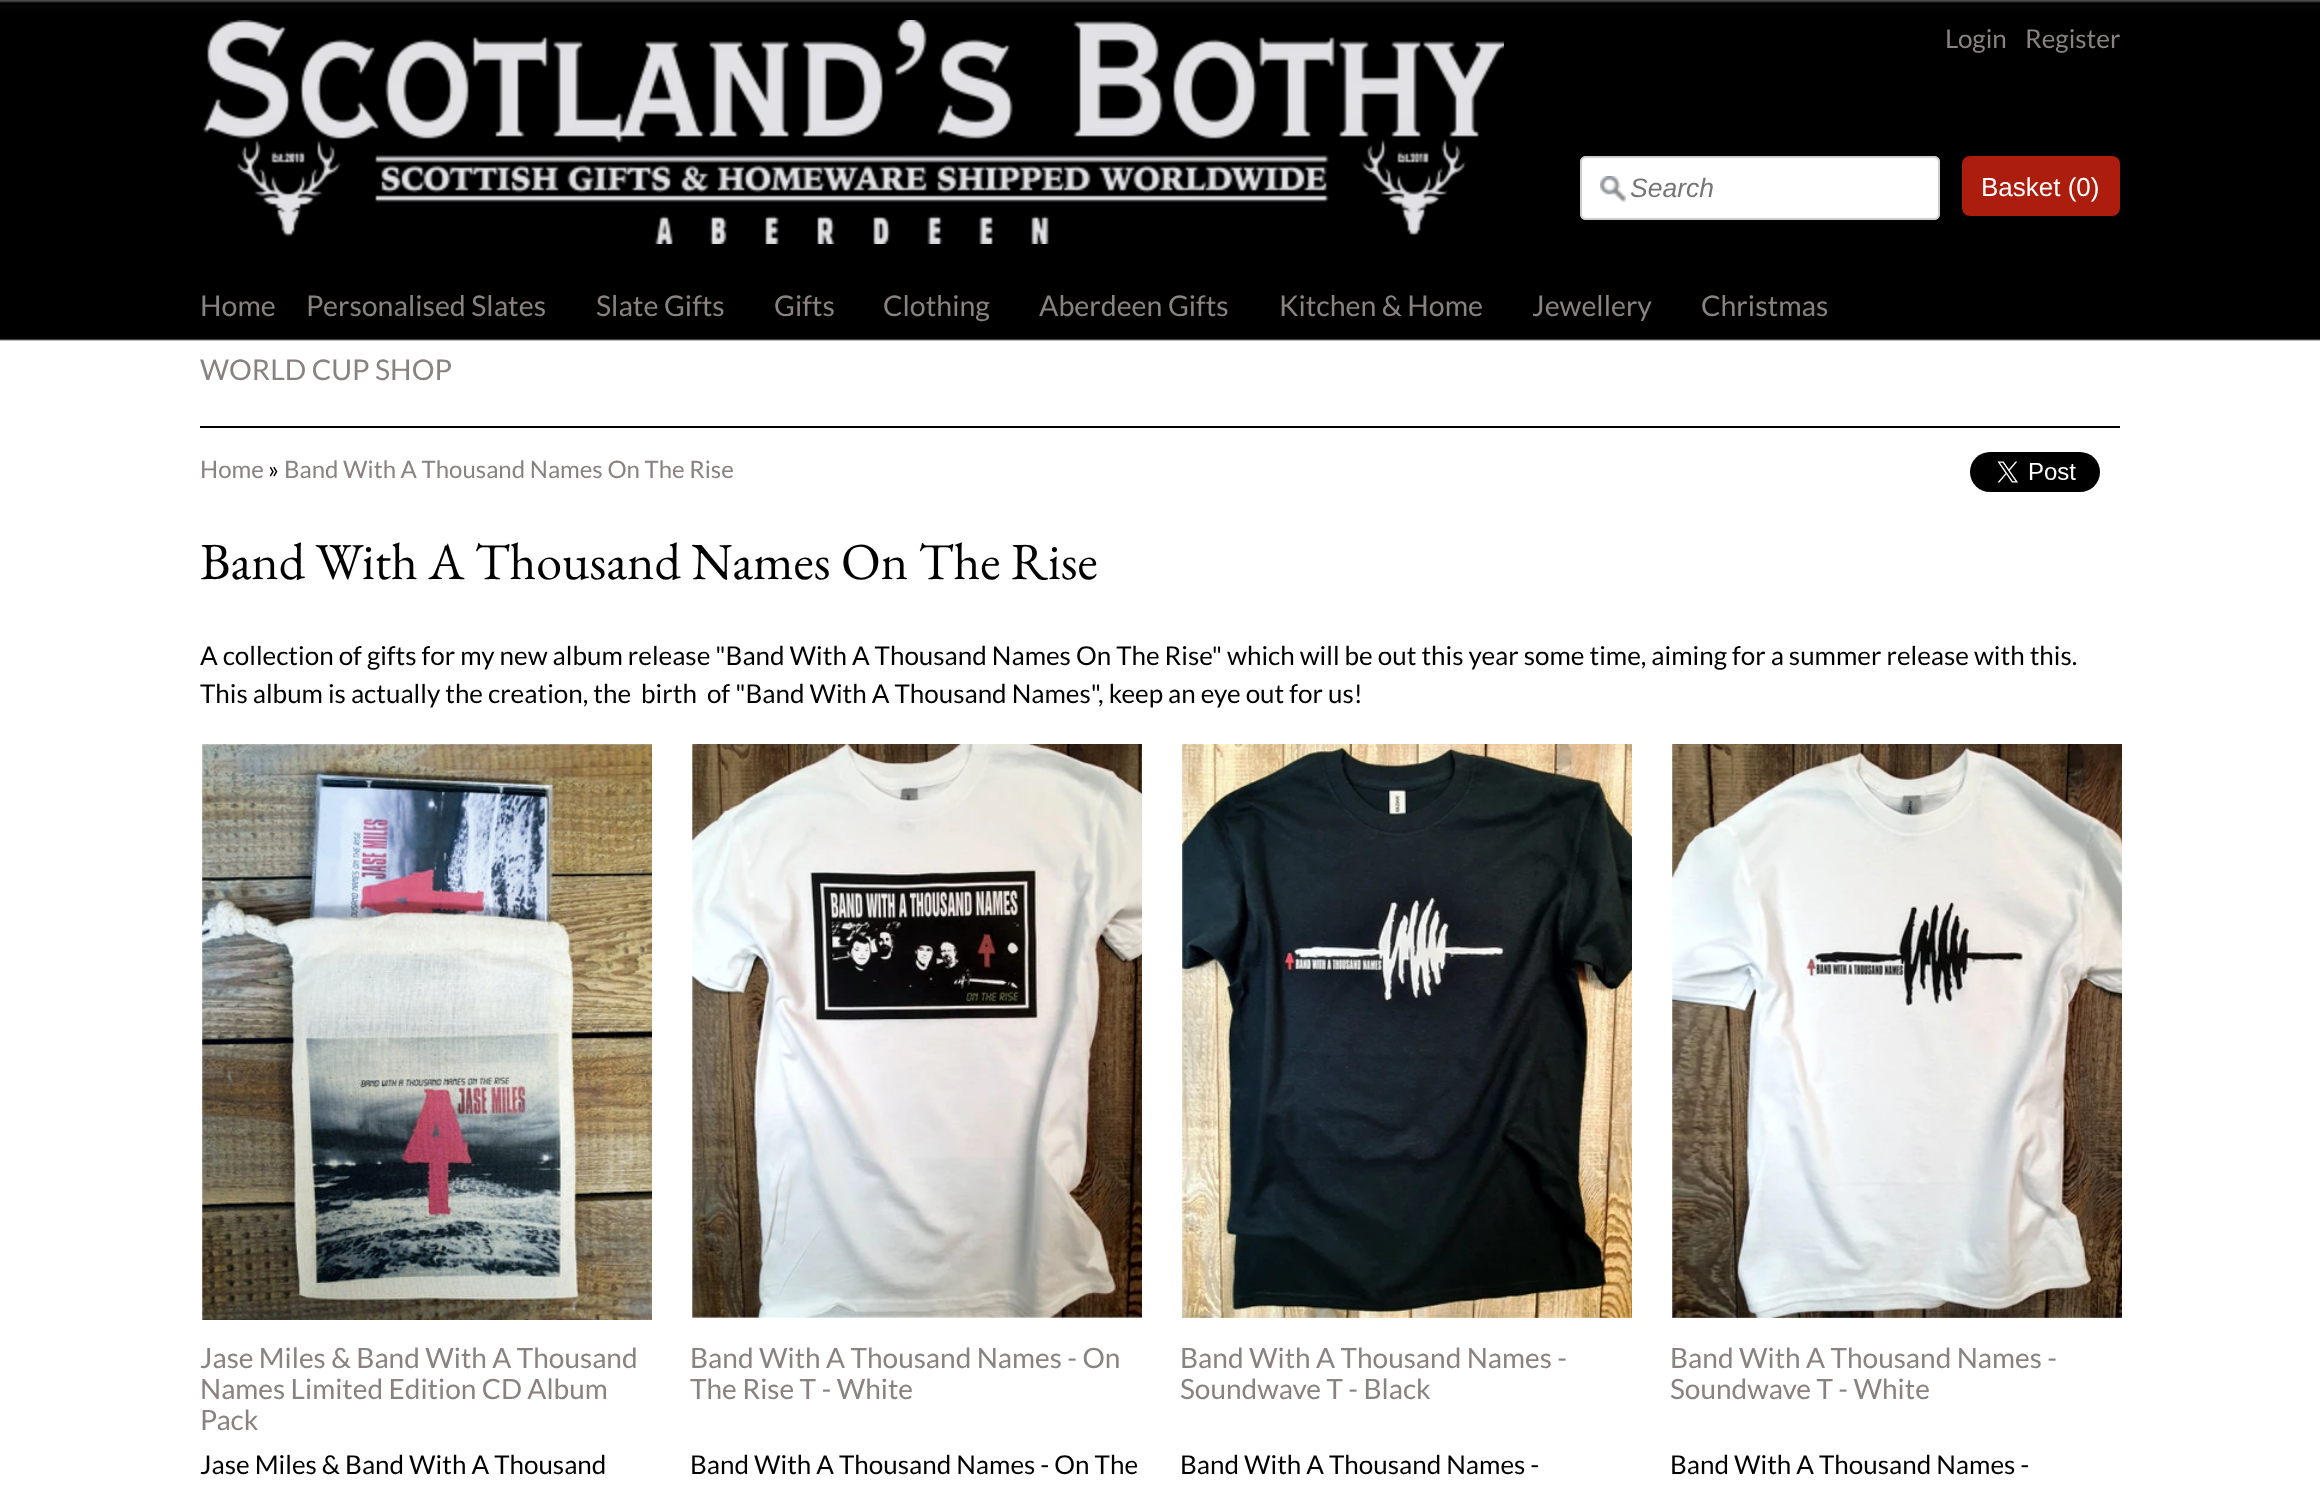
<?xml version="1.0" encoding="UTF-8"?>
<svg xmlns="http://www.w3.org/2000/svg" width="2320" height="1494">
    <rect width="100%" height="100%" fill="#FFFFFF"/>
    <image x="0" y="0" width="2320" height="341" href="img_01.png"/>
    <image x="203" y="20" width="1301" height="224" href="img_02.png"/>
    <text x="1945" y="48" font-family="Lato" font-size="26" fill="#8A8181">Login</text>
    <text x="2025" y="48" font-family="Lato" font-size="26" fill="#8A8181">Register</text>
    <rect x="1580" y="156" width="360" height="64" rx="6" fill="#FFFFFF"/>
    <image x="1600" y="176" width="26" height="26" href="img_03.png"/>
    <rect x="1581" y="157" width="358" height="62" rx="5" fill="none" stroke="#CCCCCC" stroke-width="2"/>
    <text x="1630" y="197" font-family="Liberation Sans" font-size="26.5" font-style="italic" fill="#757575">Search</text>
    <rect x="1962" y="156" width="158" height="60" rx="8" fill="#AD1D0E"/>
    <text x="1981" y="196" font-family="Liberation Sans" font-size="26" fill="#FFFFFF">Basket (0)</text>
    <rect x="200" y="426" width="1920" height="2" fill="#000000"/>
    <text x="200" y="316" font-family="Lato" font-size="28.5" fill="#8A8181">Home</text>
    <text x="306" y="316" font-family="Lato" font-size="28.5" fill="#8A8181">Personalised Slates</text>
    <text x="596" y="316" font-family="Lato" font-size="28.5" fill="#8A8181">Slate Gifts</text>
    <text x="774" y="316" font-family="Lato" font-size="28.5" fill="#8A8181">Gifts</text>
    <text x="883" y="316" font-family="Lato" font-size="28.5" fill="#8A8181">Clothing</text>
    <text x="1039" y="316" font-family="Lato" font-size="28.5" fill="#8A8181">Aberdeen Gifts</text>
    <text x="1279" y="316" font-family="Lato" font-size="28.5" fill="#8A8181">Kitchen &amp; Home</text>
    <text x="1532" y="316" font-family="Lato" font-size="28.5" fill="#8A8181">Jewellery</text>
    <text x="1701" y="316" font-family="Lato" font-size="28.5" fill="#8A8181">Christmas</text>
    <text x="200" y="380" font-family="Lato" font-size="28.5" fill="#8A8181">WORLD CUP SHOP</text>
    <text x="200" y="478" font-family="Lato" font-size="24" fill="#8A8181">Home</text>
    <text x="268" y="478" font-family="Lato" font-size="24" fill="#000000">»</text>
    <text x="284" y="478" font-family="Lato" font-size="24" fill="#8A8181">Band With A Thousand Names On The Rise</text>
    <image x="1970" y="452" width="130" height="40" href="img_04.png"/>
    <text x="200" y="579" font-family="EB Garamond" font-size="52" fill="#000000">Band With A Thousand Names On The Rise</text>
    <text font-family="Lato" font-size="26" fill="#000000" xml:space="preserve"><tspan x="200" y="665">A collection of gifts for my new album release "Band With A Thousand Names On The Rise" which will be out this year some time, aiming for a summer release with this.</tspan><tspan x="200" y="703">This album is actually the creation, the  birth  of "Band With A Thousand Names", keep an eye out for us!</tspan></text>
    <image x="202" y="744" width="450" height="576" href="img_05.png"/>
    <text font-family="Lato" font-size="28" fill="#8A8181">
        <tspan x="200" y="1368">Jase Miles &amp; Band With A Thousand</tspan>
        <tspan x="200" y="1399">Names Limited Edition CD Album</tspan>
        <tspan x="200" y="1430">Pack</tspan>
    </text>
    <text x="200" y="1474" font-family="Lato" font-size="26" fill="#000000">Jase Miles &amp; Band With A Thousand</text>
    <image x="692" y="744" width="450" height="574" href="img_06.png"/>
    <text font-family="Lato" font-size="28" fill="#8A8181">
        <tspan x="690" y="1368">Band With A Thousand Names - On</tspan>
        <tspan x="690" y="1399">The Rise T - White</tspan>
    </text>
    <text x="690" y="1474" font-family="Lato" font-size="26" fill="#000000">Band With A Thousand Names - On The</text>
    <image x="1182" y="744" width="450" height="574" href="img_07.png"/>
    <text font-family="Lato" font-size="28" fill="#8A8181">
        <tspan x="1180" y="1368">Band With A Thousand Names -</tspan>
        <tspan x="1180" y="1399">Soundwave T - Black</tspan>
    </text>
    <text x="1180" y="1474" font-family="Lato" font-size="26" fill="#000000">Band With A Thousand Names -</text>
    <image x="1672" y="744" width="450" height="574" href="img_08.png"/>
    <text font-family="Lato" font-size="28" fill="#8A8181">
        <tspan x="1670" y="1368">Band With A Thousand Names -</tspan>
        <tspan x="1670" y="1399">Soundwave T - White</tspan>
    </text>
    <text x="1670" y="1474" font-family="Lato" font-size="26" fill="#000000">Band With A Thousand Names -</text>
</svg>
